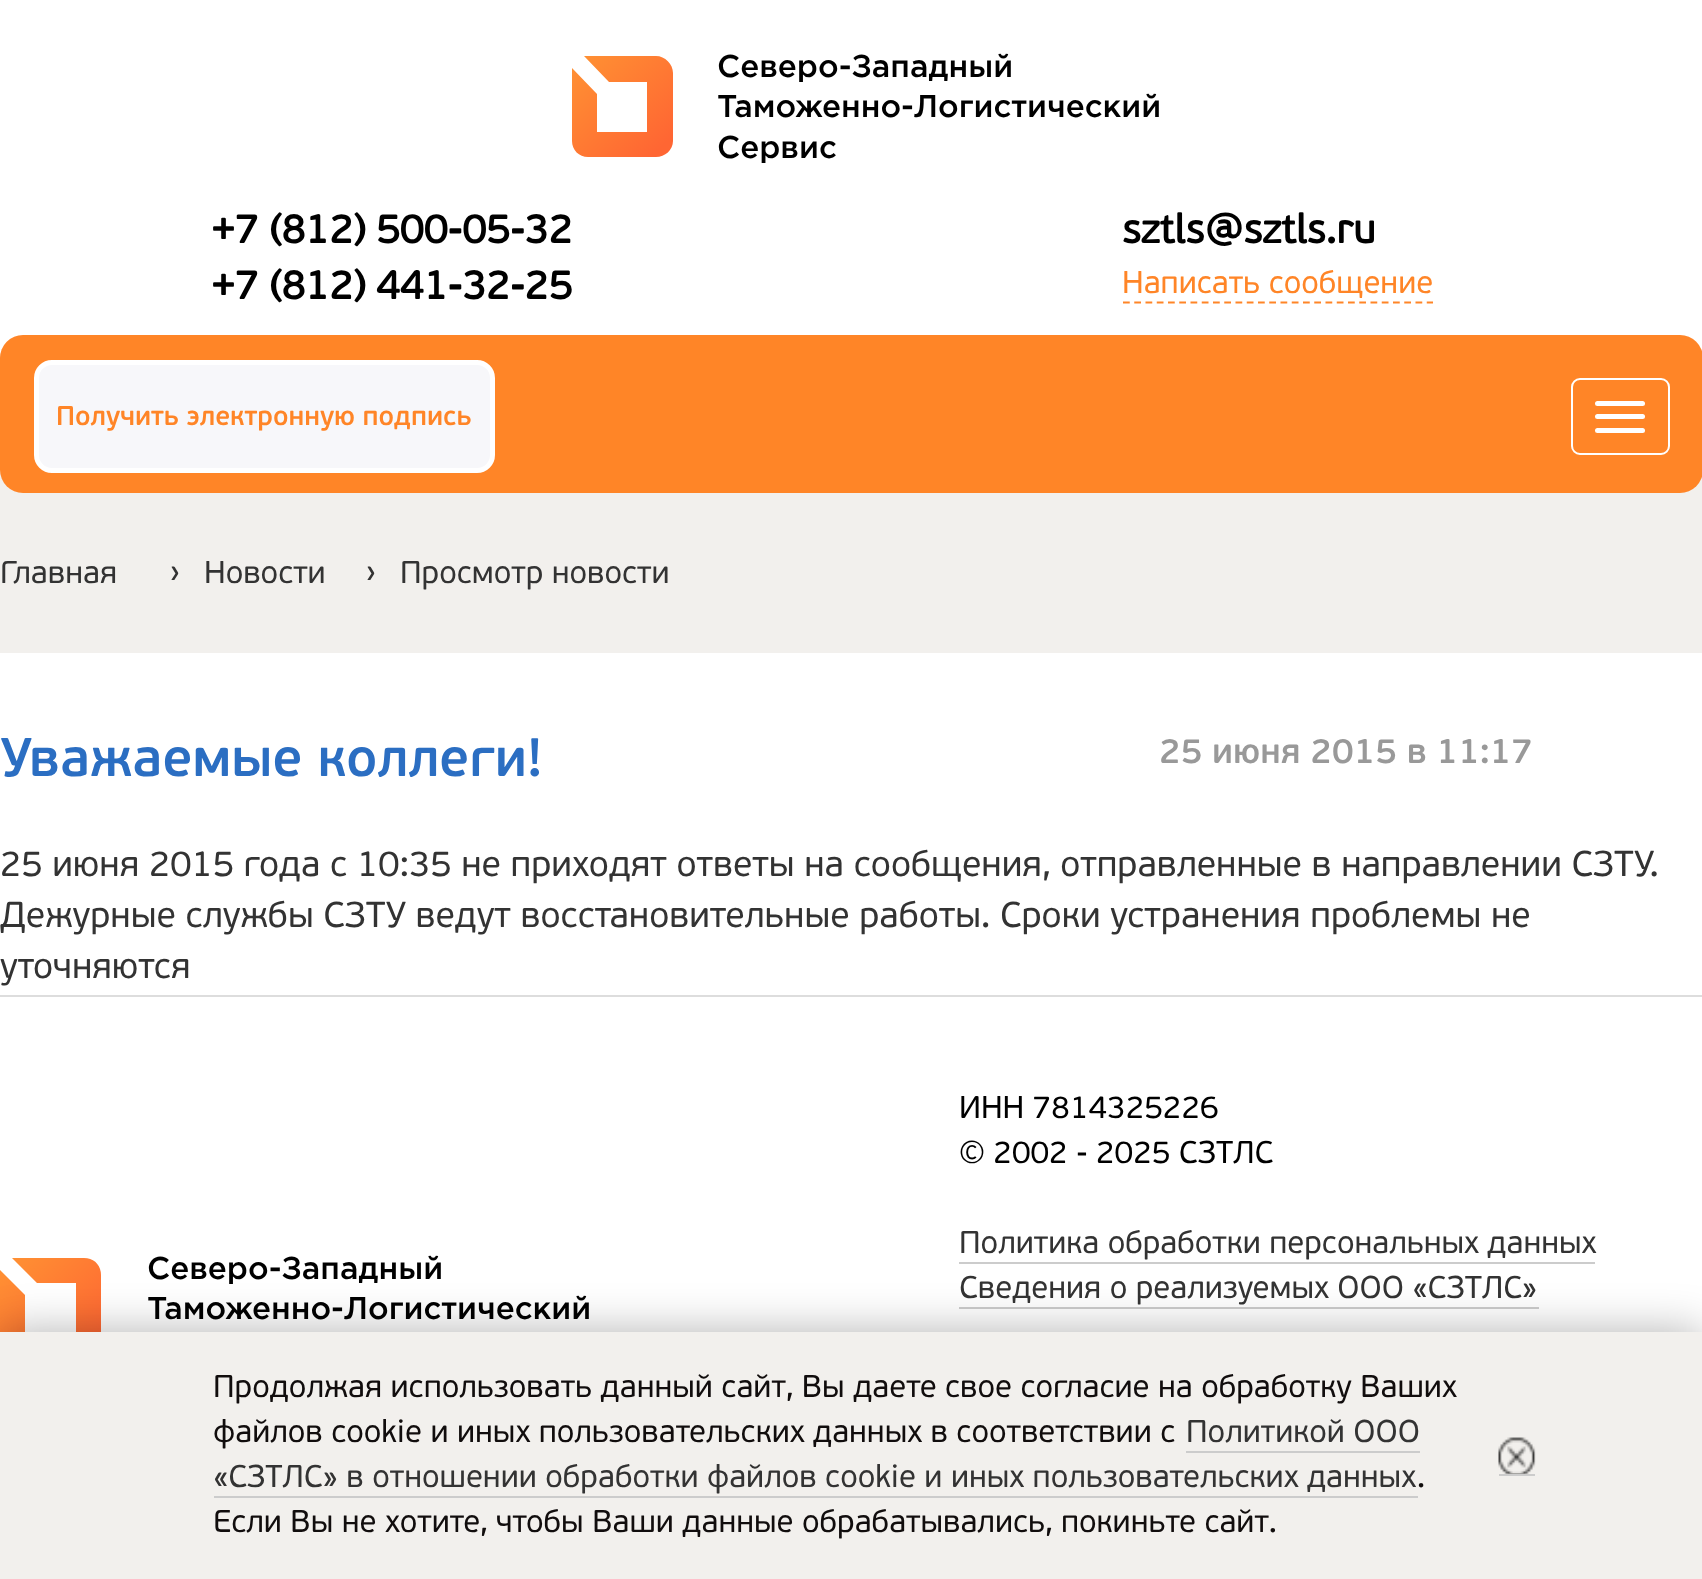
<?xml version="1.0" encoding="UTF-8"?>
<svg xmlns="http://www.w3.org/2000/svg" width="1702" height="1579">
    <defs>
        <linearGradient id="g1" gradientUnits="userSpaceOnUse" x1="576" y1="59" x2="661" y2="147"><stop offset="0" stop-color="#FF9133"/><stop offset="1" stop-color="#FF6633"/></linearGradient>
        <linearGradient id="g2" gradientUnits="userSpaceOnUse" x1="4.7" y1="1261" x2="89" y2="1348"><stop offset="0" stop-color="#FF9133"/><stop offset="1" stop-color="#FF6633"/></linearGradient>
        <filter id="blur1" x="-50%" y="-200%" width="200%" height="500%"><feGaussianBlur stdDeviation="22.5"/></filter>
    </defs>
    <rect width="100%" height="100%" fill="#FFFFFF"/>
    <path d="M 656 56 H 584 L 609 82 H 647 V 132 H 597 V 94 L 572 68 V 141 C 572 150 579 157 588 157 H 656 C 665 157 673 150 673 141 V 73 C 673 64 665 56 656 56 Z" fill="url(#g1)"/>
    <text font-family="Gotham" font-size="31.5" font-weight="500" fill="#000000">
        <tspan x="717" y="77">Северо-Западный</tspan>
        <tspan x="717" y="117">Таможенно-Логистический</tspan>
        <tspan x="717" y="158">Cервис</tspan>
    </text>
    <text font-family="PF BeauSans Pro" font-size="40.5" font-weight="700" fill="#000000">
        <tspan x="211" y="243">+7 (812) 500-05-32</tspan>
        <tspan x="211" y="299">+7 (812) 441-32-25</tspan>
    </text>
    <text x="1122" y="243" font-family="PF BeauSans Pro" font-size="40.5" font-weight="700" fill="#000000">sztls@sztls.ru</text>
    <text x="1122" y="293" font-family="PF BeauSans Pro" font-size="31.5" fill="#FF8527">Написать сообщение</text>
    <path d="M 1123 302.5 H 1433" fill="none" stroke="#FF8527" stroke-width="2.2" stroke-dasharray="6.75 4.5"/>
    <rect x="0" y="470" width="1702" height="183" fill="#F2F0ED"/>
    <rect x="0" y="335" width="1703" height="158" rx="23" fill="#FF8527"/>
    <rect x="36.5" y="362.5" width="456" height="108" rx="15.5" fill="#F7F7FA" stroke="#FFFFFF" stroke-width="5"/>
    <text x="56" y="425" font-family="PF BeauSans Pro" font-size="27" font-weight="600" fill="#FF8527">Получить электронную подпись</text>
    <rect x="1572" y="379" width="97" height="75" rx="8" fill="none" stroke="#FFFFFF" stroke-width="2"/>
    <rect x="1595" y="401" width="50" height="5" rx="2.5" fill="#FFFFFF"/>
    <rect x="1595" y="414" width="50" height="5" rx="2.5" fill="#FFFFFF"/>
    <rect x="1595" y="428" width="50" height="5" rx="2.5" fill="#FFFFFF"/>
    <text x="0" y="583" font-family="PF BeauSans Pro" font-size="31.5" fill="#333333">Главная</text>
    <text x="170" y="581" font-family="PF BeauSans Pro" font-size="31.5" fill="#333333">›</text>
    <text x="204" y="583" font-family="PF BeauSans Pro" font-size="31.5" fill="#333333">Новости</text>
    <text x="366" y="581" font-family="PF BeauSans Pro" font-size="31.5" fill="#333333">›</text>
    <text x="400" y="583" font-family="PF BeauSans Pro" font-size="31.5" fill="#333333">Просмотр новости</text>
    <text x="0" y="776" font-family="PF BeauSans Pro" font-size="54" font-weight="600" fill="#2B6EC2">Уважаемые коллеги!</text>
    <text x="1159" y="763" font-family="PF BeauSans Pro" font-size="35.1" font-weight="600" fill="#999999">25 июня 2015 в 11:17</text>
    <text font-family="PF BeauSans Pro" font-size="36" fill="#333333">
        <tspan x="0" y="876">25 июня 2015 года с 10:35 не приходят ответы на сообщения, отправленные в направлении СЗТУ.</tspan>
        <tspan x="0" y="927">Дежурные службы СЗТУ ведут восстановительные работы. Сроки устранения проблемы не</tspan>
        <tspan x="0" y="978">уточняются</tspan>
    </text>
    <rect x="0" y="995" width="1702" height="2" fill="#DDDDDD"/>
    <path d="M 84 1258 H 12 L 37 1283 H 76 V 1334 H 25 V 1295 L 0 1270 V 1342 C 0 1351 8 1359 17 1359 H 84 C 94 1359 101 1351 101 1342 V 1275 C 101 1265 94 1258 84 1258 Z" fill="url(#g2)"/>
    <text font-family="Gotham" font-size="31.5" font-weight="500" fill="#000000">
        <tspan x="147" y="1279">Северо-Западный</tspan>
        <tspan x="147" y="1319">Таможенно-Логистический</tspan>
    </text>
    <text font-family="PF BeauSans Pro" font-size="31.5" fill="#000000">
        <tspan x="959" y="1118">ИНН 7814325226</tspan>
        <tspan x="959" y="1163">© 2002 - 2025 СЗТЛС</tspan>
    </text>
    <text x="959" y="1253" font-family="PF BeauSans Pro" font-size="31.5" fill="#333333">Политика обработки персональных данных</text>
    <rect x="959" y="1262" width="636" height="2" fill="#CCCCCC"/>
    <text x="959" y="1298" font-family="PF BeauSans Pro" font-size="31.5" fill="#333333">Сведения о реализуемых ООО «СЗТЛС»</text>
    <rect x="959" y="1307" width="580" height="2" fill="#CCCCCC"/>
    <rect x="0" y="1332" width="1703" height="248" fill="#000000" fill-opacity="0.3" filter="url(#blur1)"/>
    <rect x="0" y="1332" width="1702" height="247" fill="#F2F0ED"/>
    <text font-family="PF BeauSans Pro" font-size="31.5" fill="#110D0D">
        <tspan x="213" y="1397">Продолжая использовать данный сайт, Вы даете свое согласие на обработку Ваших</tspan>
        <tspan x="213" y="1442">файлов cookie и иных пользовательских данных в соответствии с</tspan>
    </text>
    <text x="1186" y="1442" font-family="PF BeauSans Pro" font-size="31.5" fill="#333333">Политикой ООО</text>
    <rect x="1186" y="1451" width="234" height="2" fill="#CCCCCC"/>
    <text x="213" y="1487" font-family="PF BeauSans Pro" font-size="31.5" fill="#333333">«СЗТЛС» в отношении обработки файлов cookie и иных пользовательских данных</text>
    <rect x="214" y="1496" width="1204" height="2" fill="#CCCCCC"/>
    <text x="1417" y="1487" font-family="PF BeauSans Pro" font-size="31.5" fill="#110D0D">.</text>
    <image x="1498" y="1437" width="38" height="37" href="img_01.png"/>
    <rect x="1499" y="1474" width="36" height="2" fill="#CCCCCC"/>
    <text x="213" y="1532" font-family="PF BeauSans Pro" font-size="31.5" fill="#110D0D">Если Вы не хотите, чтобы Ваши данные обрабатывались, покиньте сайт.</text>
</svg>
